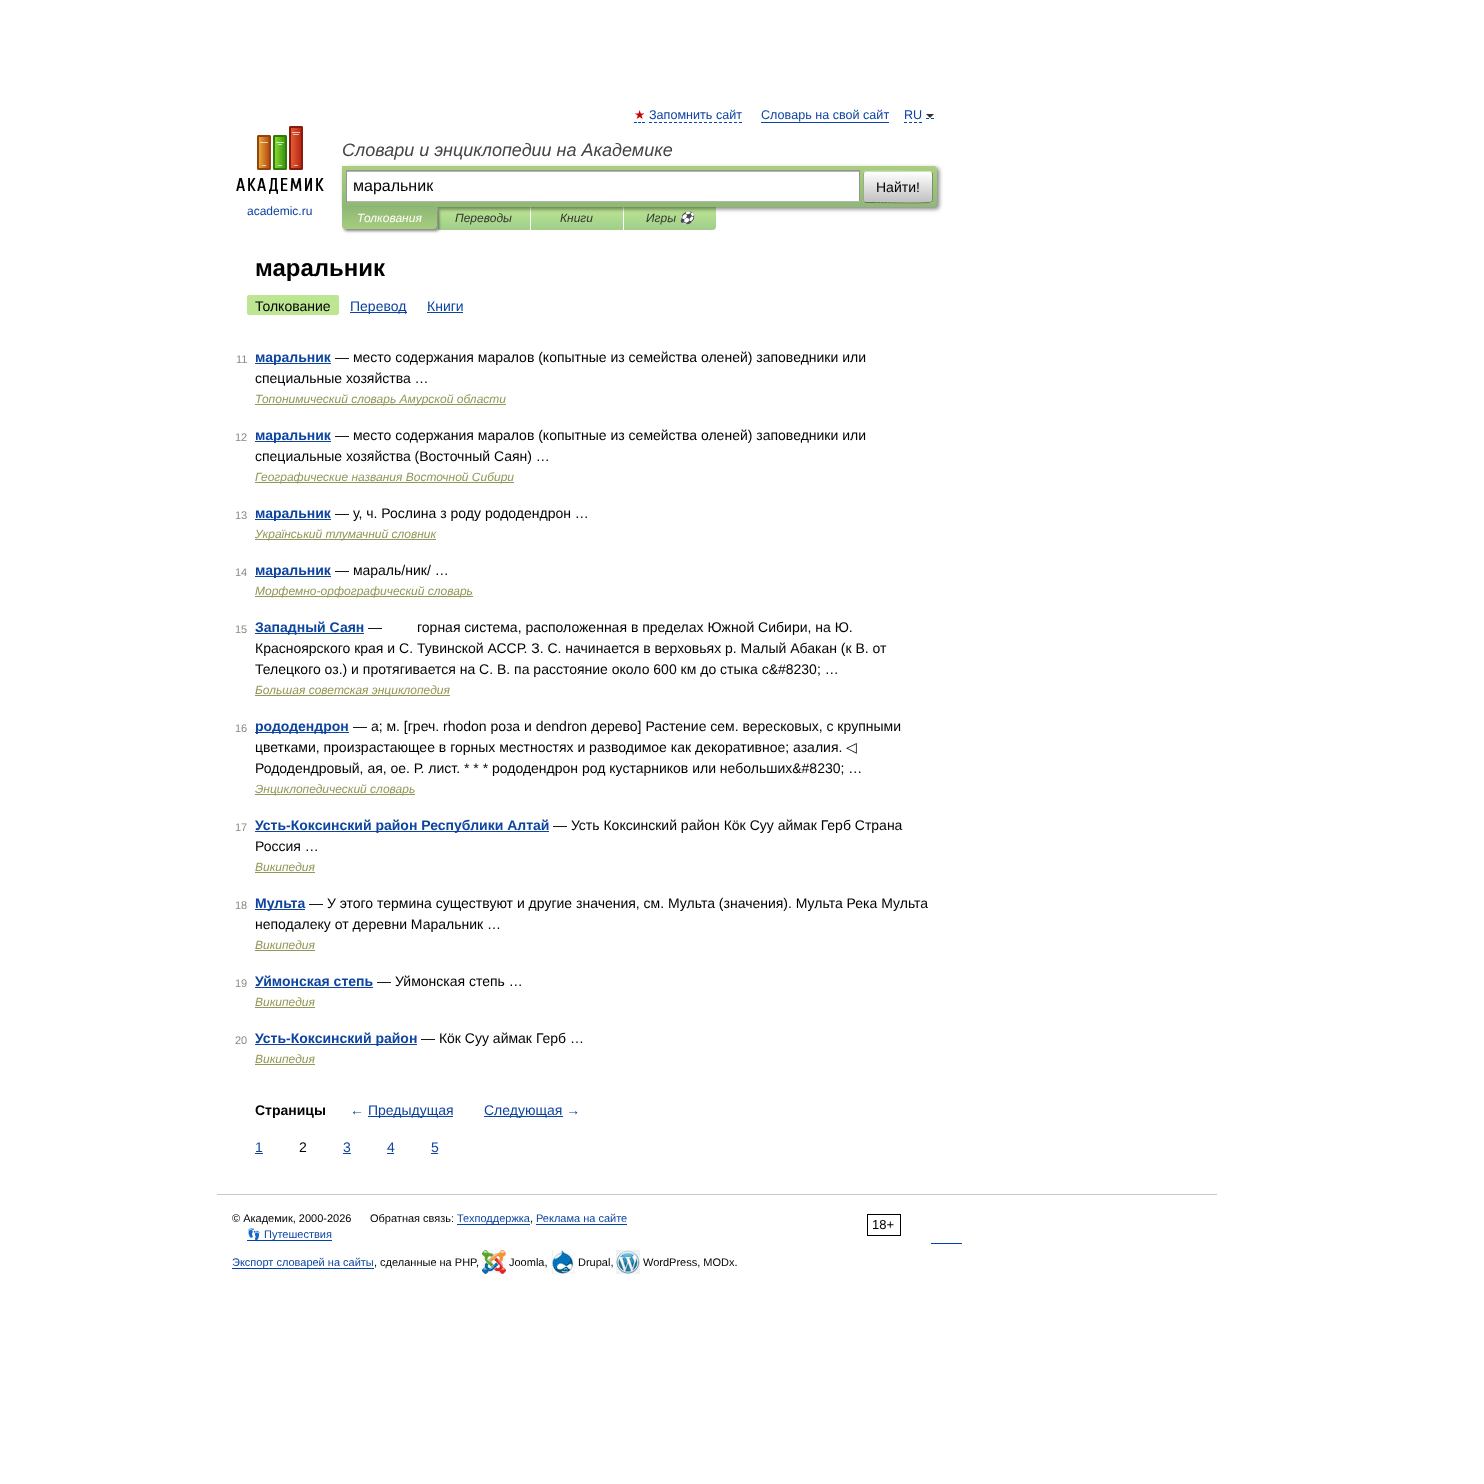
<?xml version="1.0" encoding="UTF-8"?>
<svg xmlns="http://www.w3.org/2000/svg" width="1484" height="1484">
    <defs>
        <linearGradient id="g1" gradientUnits="userSpaceOnUse" x1="484" y1="207" x2="484" y2="230"><stop offset="0" stop-color="#BDE693"/><stop offset="1" stop-color="#A0CE8A"/></linearGradient>
        <linearGradient id="g2" gradientUnits="userSpaceOnUse" x1="577" y1="207" x2="577" y2="230"><stop offset="0" stop-color="#BDE693"/><stop offset="1" stop-color="#A0CE8A"/></linearGradient>
        <linearGradient id="g3" gradientUnits="userSpaceOnUse" x1="670" y1="207" x2="670" y2="230"><stop offset="0" stop-color="#BDE693"/><stop offset="1" stop-color="#A0CE8A"/></linearGradient>
        <filter id="blur1" x="-50%" y="-200%" width="200%" height="500%"><feGaussianBlur stdDeviation="2"/></filter>
        <linearGradient id="g4" gradientUnits="userSpaceOnUse" x1="640" y1="166" x2="640" y2="207"><stop offset="0" stop-color="#ABCF7E"/><stop offset="1" stop-color="#8EB874"/></linearGradient>
        <clipPath id="clip1"><rect x="863" y="171" width="70" height="32" rx="3"/></clipPath>
        <linearGradient id="g5" gradientUnits="userSpaceOnUse" x1="898" y1="142" x2="898" y2="172"><stop offset="0" stop-color="#FFFFFF"/><stop offset="1" stop-color="#C1C1C1"/></linearGradient>
        <linearGradient id="g6" gradientUnits="userSpaceOnUse" x1="898" y1="172" x2="898" y2="202"><stop offset="0" stop-color="#FFFFFF"/><stop offset="1" stop-color="#C1C1C1"/></linearGradient>
        <linearGradient id="g7" gradientUnits="userSpaceOnUse" x1="898" y1="202" x2="898" y2="232"><stop offset="0" stop-color="#FFFFFF"/><stop offset="1" stop-color="#C1C1C1"/></linearGradient>
        <filter id="blur2" x="-50%" y="-200%" width="200%" height="500%"><feGaussianBlur stdDeviation="1.5"/></filter>
        <linearGradient id="g8" gradientUnits="userSpaceOnUse" x1="390" y1="207" x2="390" y2="229"><stop offset="0" stop-color="#8FB875"/><stop offset="1" stop-color="#A7CC7D"/></linearGradient>
    </defs>
    <rect width="100%" height="100%" fill="#FFFFFF"/>
    <text x="634" y="119" font-family="DejaVu Sans" font-size="12.6" fill="#CC0000">★</text>
    <path d="M 634 122.5 H 637 M 638 122.5 H 641 M 642 122.5 H 645" fill="none" stroke="#0044AA"/>
    <text x="649" y="119" font-family="Liberation Sans" font-size="12.6" fill="#0D44A0">Запомнить сайт</text>
    <path d="M 649 122.5 H 742" fill="none" stroke="#0044AA" stroke-dasharray="3 2"/>
    <text x="761" y="119" font-family="Liberation Sans" font-size="12.6" fill="#0D44A0">Словарь на свой сайт</text>
    <rect x="761" y="122" width="128" height="1" fill="#0D44A0"/>
    <path d="M 904 122.5 H 922" fill="none" stroke="#0044AA" stroke-dasharray="3 2"/>
    <path d="M 926 118.5 H 929 M 931 118.5 H 934" fill="none" stroke="#0044AA"/>
    <text x="904" y="119" font-family="Liberation Sans" font-size="12.6" fill="#0D44A0">RU</text>
    <path d="M 926 114 H 934 L 930 118 Z" fill="#333333"/>
    <text x="342" y="156" font-family="Liberation Sans" font-size="18" font-style="italic" fill="#454545">Словари и энциклопедии на Академике</text>
    <rect x="438" y="207" width="92" height="23" fill="url(#g1)"/>
    <rect x="531" y="207" width="92" height="23" fill="url(#g2)"/>
    <path d="M 624 207 H 716 V 227 C 716 228.5 714.5 230 713 230 H 624 Z" fill="url(#g3)"/>
    <rect x="344" y="168" width="595" height="41" rx="3" fill="#000000" fill-opacity="0.5" filter="url(#blur1)"/>
    <path d="M 342 166 H 934 C 935.5 166 937 167.5 937 169 V 204 C 937 205.5 935.5 207 934 207 H 342 Z" fill="url(#g4)"/>
    <rect x="347" y="172" width="512" height="29" fill="#FFFFFF"/>
    <rect x="347" y="171" width="512" height="1" fill="#B3B3B3"/>
    <rect x="346" y="170" width="514" height="1" fill="#949494"/>
    <rect x="859" y="170" width="1" height="32" fill="#949494"/>
    <rect x="346" y="201" width="514" height="1" fill="#B4B4B4"/>
    <rect x="346" y="170" width="1" height="32" fill="#949494"/>
    <text x="353" y="191" font-family="Liberation Sans" font-size="16" fill="#000000">маральник</text>
    <g clip-path="url(#clip1)">
        <rect x="863" y="171" width="70" height="1" fill="url(#g5)"/>
        <rect x="863" y="172" width="70" height="30" fill="url(#g6)"/>
        <rect x="863" y="202" width="70" height="1" fill="url(#g7)"/>
    </g>
    <path d="M 864 172 H 864.5 C 866.5 170.5 913 171.5 919.5 171.5 H 930 L 932 172" fill="none" stroke="#D1E4BC"/>
    <path d="M 932 172 C 932 172.5 932.5 173.5 932.5 174 V 200 C 932.5 200.5 932 201.5 932 202" fill="none" stroke="#7A8E69"/>
    <path d="M 932 202 H 931.5 C 929.5 203.5 883 202.5 876.5 202.5 H 866 L 864 202" fill="none" stroke="#5D7250"/>
    <path d="M 864 202 C 864 201.5 863.5 200.5 863.5 200 V 174 C 863.5 173.5 864 172.5 864 172" fill="none" stroke="#9AAE89"/>
    <text x="876" y="192" font-family="Liberation Sans" font-size="14" fill="#000000">Найти!</text>
    <image x="236" y="126" width="88" height="68" href="img_01.png"/>
    <text x="247" y="215" font-family="Liberation Sans" font-size="12" fill="#0D44A0">academic.ru</text>
    <rect x="344" y="209" width="95" height="22" rx="3" fill="#000000" fill-opacity="0.5" filter="url(#blur2)"/>
    <path d="M 342 207 H 437 V 226 C 437 227.5 435.5 229 434 229 H 345 C 343.5 229 342 227.5 342 226 Z" fill="url(#g8)"/>
    <text x="357" y="222" font-family="Liberation Sans" font-size="12" font-style="italic" fill="#FFFFFF">Толкования</text>
    <text x="455" y="222" font-family="Liberation Sans" font-size="12" font-style="italic" fill="#353535">Переводы</text>
    <text x="560" y="222" font-family="Liberation Sans" font-size="12" font-style="italic" fill="#353535">Книги</text>
    <text x="646" y="222" font-family="Liberation Sans" font-size="12" font-style="italic" fill="#353535">Игры</text>
    <text x="679" y="222" font-family="Noto Color Emoji" font-size="12" font-style="italic" fill="#353535">⚽</text>
    <text x="255" y="276" font-family="Liberation Sans" font-size="24" font-weight="700" fill="#000000">маральник</text>
    <rect x="247" y="295" width="92" height="20" rx="2" fill="#BDE693"/>
    <text x="255" y="311" font-family="Liberation Sans" font-size="14" fill="#000000">Толкование</text>
    <rect x="350" y="312" width="57" height="1" fill="#0D44A0"/>
    <text x="350" y="311" font-family="Liberation Sans" font-size="14" fill="#0D44A0">Перевод</text>
    <text x="427" y="311" font-family="Liberation Sans" font-size="14" fill="#0D44A0">Книги</text>
    <rect x="427" y="312" width="36" height="1" fill="#0D44A0"/>
    <text x="236" y="363" font-family="Liberation Sans" font-size="11" fill="#898989">11</text>
    <rect x="255" y="363" width="76" height="1" fill="#0D44A0"/>
    <text x="255" y="362" font-family="Liberation Sans" font-size="14" font-weight="700" fill="#0D44A0">маральник</text>
    <text x="335" y="362" font-family="Liberation Sans" font-size="14" fill="#000000">— место содержания маралов (копытные из семейства оленей) заповедники или</text>
    <text x="255" y="383" font-family="Liberation Sans" font-size="14" fill="#000000">специальные хозяйства …</text>
    <rect x="255" y="404" width="251" height="1" fill="#939756"/>
    <text x="255" y="403" font-family="Liberation Sans" font-size="12" font-style="italic" fill="#939756">Топонимический словарь Амурской области</text>
    <text x="235" y="441" font-family="Liberation Sans" font-size="11" fill="#898989">12</text>
    <rect x="255" y="441" width="76" height="1" fill="#0D44A0"/>
    <text x="255" y="440" font-family="Liberation Sans" font-size="14" font-weight="700" fill="#0D44A0">маральник</text>
    <text x="335" y="440" font-family="Liberation Sans" font-size="14" fill="#000000">— место содержания маралов (копытные из семейства оленей) заповедники или</text>
    <text x="255" y="461" font-family="Liberation Sans" font-size="14" fill="#000000">специальные хозяйства (Восточный Саян) …</text>
    <rect x="255" y="482" width="259" height="1" fill="#939756"/>
    <text x="255" y="481" font-family="Liberation Sans" font-size="12" font-style="italic" fill="#939756">Географические названия Восточной Сибири</text>
    <text x="235" y="519" font-family="Liberation Sans" font-size="11" fill="#898989">13</text>
    <rect x="255" y="519" width="76" height="1" fill="#0D44A0"/>
    <text x="255" y="518" font-family="Liberation Sans" font-size="14" font-weight="700" fill="#0D44A0">маральник</text>
    <text x="335" y="518" font-family="Liberation Sans" font-size="14" fill="#000000">— у, ч. Рослина з роду рододендрон …</text>
    <rect x="255" y="539" width="181" height="1" fill="#939756"/>
    <text x="255" y="538" font-family="Liberation Sans" font-size="12" font-style="italic" fill="#939756">Український тлумачний словник</text>
    <text x="235" y="576" font-family="Liberation Sans" font-size="11" fill="#898989">14</text>
    <rect x="255" y="576" width="76" height="1" fill="#0D44A0"/>
    <text x="255" y="575" font-family="Liberation Sans" font-size="14" font-weight="700" fill="#0D44A0">маральник</text>
    <text x="335" y="575" font-family="Liberation Sans" font-size="14" fill="#000000">— мараль/ник/ …</text>
    <rect x="255" y="596" width="218" height="1" fill="#939756"/>
    <text x="255" y="595" font-family="Liberation Sans" font-size="12" font-style="italic" fill="#939756">Морфемно-орфографический словарь</text>
    <text x="235" y="633" font-family="Liberation Sans" font-size="11" fill="#898989">15</text>
    <rect x="255" y="633" width="109" height="1" fill="#0D44A0"/>
    <text x="255" y="632" font-family="Liberation Sans" font-size="14" font-weight="700" fill="#0D44A0">Западный Саян</text>
    <text x="368" y="632" font-family="Liberation Sans" font-size="14" fill="#000000" xml:space="preserve">—         горная система, расположенная в пределах Южной Сибири, на Ю.</text>
    <text font-family="Liberation Sans" font-size="14" fill="#000000">
        <tspan x="255" y="653">Красноярского края и С. Тувинской АССР. З. С. начинается в верховьях р. Малый Абакан (к В. от</tspan>
        <tspan x="255" y="674">Телецкого оз.) и протягивается на С. В. па расстояние около 600 км до стыка с&amp;#8230; …</tspan>
    </text>
    <rect x="255" y="695" width="195" height="1" fill="#939756"/>
    <text x="255" y="694" font-family="Liberation Sans" font-size="12" font-style="italic" fill="#939756">Большая советская энциклопедия</text>
    <text x="235" y="732" font-family="Liberation Sans" font-size="11" fill="#898989">16</text>
    <rect x="255" y="732" width="94" height="1" fill="#0D44A0"/>
    <text x="255" y="731" font-family="Liberation Sans" font-size="14" font-weight="700" fill="#0D44A0">рододендрон</text>
    <text x="353" y="731" font-family="Liberation Sans" font-size="14" fill="#000000">— а; м. [греч. rhodon роза и dendron дерево] Растение сем. вересковых, с крупными</text>
    <text x="255" y="752" font-family="Liberation Sans" font-size="14" fill="#000000">цветками, произрастающее в горных местностях и разводимое как декоративное; азалия.</text>
    <text x="846" y="752" font-family="DejaVu Sans" font-size="14" fill="#000000">◁</text>
    <text x="255" y="773" font-family="Liberation Sans" font-size="14" fill="#000000">Рододендровый, ая, ое. Р. лист. * * * рододендрон род кустарников или небольших&amp;#8230; …</text>
    <rect x="255" y="794" width="160" height="1" fill="#939756"/>
    <text x="255" y="793" font-family="Liberation Sans" font-size="12" font-style="italic" fill="#939756">Энциклопедический словарь</text>
    <text x="235" y="831" font-family="Liberation Sans" font-size="11" fill="#898989">17</text>
    <rect x="255" y="831" width="294" height="1" fill="#0D44A0"/>
    <text x="255" y="830" font-family="Liberation Sans" font-size="14" font-weight="700" fill="#0D44A0">Усть-Коксинский район Республики Алтай</text>
    <text x="553" y="830" font-family="Liberation Sans" font-size="14" fill="#000000">— Усть Коксинский район Кöк Суу аймак Герб Страна</text>
    <text x="255" y="851" font-family="Liberation Sans" font-size="14" fill="#000000">Россия …</text>
    <text x="255" y="871" font-family="Liberation Sans" font-size="12" font-style="italic" fill="#939756">Википедия</text>
    <rect x="255" y="872" width="60" height="1" fill="#939756"/>
    <text x="235" y="909" font-family="Liberation Sans" font-size="11" fill="#898989">18</text>
    <rect x="255" y="909" width="50" height="1" fill="#0D44A0"/>
    <text x="255" y="908" font-family="Liberation Sans" font-size="14" font-weight="700" fill="#0D44A0">Мульта</text>
    <text x="309" y="908" font-family="Liberation Sans" font-size="14" fill="#000000">— У этого термина существуют и другие значения, см. Мульта (значения). Мульта Река Мульта</text>
    <text x="255" y="929" font-family="Liberation Sans" font-size="14" fill="#000000">неподалеку от деревни Маральник …</text>
    <text x="255" y="949" font-family="Liberation Sans" font-size="12" font-style="italic" fill="#939756">Википедия</text>
    <rect x="255" y="950" width="60" height="1" fill="#939756"/>
    <text x="235" y="987" font-family="Liberation Sans" font-size="11" fill="#898989">19</text>
    <text x="255" y="986" font-family="Liberation Sans" font-size="14" font-weight="700" fill="#0D44A0">Уймонская степь</text>
    <rect x="255" y="987" width="118" height="1" fill="#0D44A0"/>
    <text x="377" y="986" font-family="Liberation Sans" font-size="14" fill="#000000">— Уймонская степь …</text>
    <text x="255" y="1006" font-family="Liberation Sans" font-size="12" font-style="italic" fill="#939756">Википедия</text>
    <rect x="255" y="1007" width="60" height="1" fill="#939756"/>
    <text x="235" y="1044" font-family="Liberation Sans" font-size="11" fill="#898989">20</text>
    <rect x="255" y="1044" width="162" height="1" fill="#0D44A0"/>
    <text x="255" y="1043" font-family="Liberation Sans" font-size="14" font-weight="700" fill="#0D44A0">Усть-Коксинский район</text>
    <text x="421" y="1043" font-family="Liberation Sans" font-size="14" fill="#000000">— Кöк Суу аймак Герб …</text>
    <text x="255" y="1063" font-family="Liberation Sans" font-size="12" font-style="italic" fill="#939756">Википедия</text>
    <rect x="255" y="1064" width="60" height="1" fill="#939756"/>
    <text x="255" y="1115" font-family="Liberation Sans" font-size="14" font-weight="700" fill="#000000">Страницы</text>
    <text x="350" y="1115" font-family="Liberation Sans" font-size="14" fill="#0D44A0">←</text>
    <rect x="368" y="1116" width="85" height="1" fill="#0D44A0"/>
    <text x="368" y="1115" font-family="Liberation Sans" font-size="14" fill="#0D44A0">Предыдущая</text>
    <rect x="484" y="1116" width="79" height="1" fill="#0D44A0"/>
    <text x="484" y="1115" font-family="Liberation Sans" font-size="14" fill="#0D44A0">Следующая →</text>
    <text x="255" y="1152" font-family="Liberation Sans" font-size="14" fill="#0D44A0">1</text>
    <rect x="255" y="1153" width="8" height="1" fill="#0D44A0"/>
    <text x="299" y="1152" font-family="Liberation Sans" font-size="14" fill="#000000">2</text>
    <text x="343" y="1152" font-family="Liberation Sans" font-size="14" fill="#0D44A0">3</text>
    <rect x="343" y="1153" width="8" height="1" fill="#0D44A0"/>
    <text x="387" y="1152" font-family="Liberation Sans" font-size="14" fill="#0D44A0">4</text>
    <rect x="387" y="1153" width="7" height="1" fill="#0D44A0"/>
    <text x="431" y="1152" font-family="Liberation Sans" font-size="14" fill="#0D44A0">5</text>
    <rect x="431" y="1153" width="7" height="1" fill="#0D44A0"/>
    <rect x="217" y="1194" width="1000" height="1" fill="#C7C7C7"/>
    <text x="232" y="1222" font-family="Liberation Sans" font-size="11" fill="#000000">© Академик, 2000-2026</text>
    <text x="370" y="1222" font-family="Liberation Sans" font-size="11" fill="#000000">Обратная связь:</text>
    <rect x="457" y="1224" width="73" height="1" fill="#0044AA"/>
    <text x="457" y="1222" font-family="Liberation Sans" font-size="11" fill="#0D44A0">Техподдержка</text>
    <text x="530" y="1222" font-family="Liberation Sans" font-size="11" fill="#000000">,</text>
    <rect x="536" y="1224" width="91" height="1" fill="#0044AA"/>
    <text x="536" y="1222" font-family="Liberation Sans" font-size="11" fill="#0D44A0">Реклама на сайте</text>
    <rect x="867.5" y="1214.5" width="33" height="21" fill="none" stroke="#000000"/>
    <text x="872" y="1229" font-family="Liberation Sans" font-size="13" fill="#000000">18+</text>
    <rect x="247" y="1240" width="85" height="1" fill="#0044AA"/>
    <text x="247" y="1238" font-family="Noto Color Emoji" font-size="11" fill="#0D44A0">👣</text>
    <text x="264" y="1238" font-family="Liberation Sans" font-size="11" fill="#0D44A0">Путешествия</text>
    <rect x="931" y="1243" width="31" height="1" fill="#0044AA"/>
    <rect x="232" y="1268" width="142" height="1" fill="#0044AA"/>
    <text x="232" y="1266" font-family="Liberation Sans" font-size="11" fill="#0D44A0">Экспорт словарей на сайты</text>
    <text x="374" y="1266" font-family="Liberation Sans" font-size="11" fill="#000000">, сделанные на PHP,</text>
    <image x="482" y="1250" width="24" height="24" href="img_02.png"/>
    <text x="509" y="1266" font-family="Liberation Sans" font-size="11" fill="#000000">Joomla,</text>
    <image x="551" y="1250" width="24" height="24" href="img_03.png"/>
    <text x="578" y="1266" font-family="Liberation Sans" font-size="11" fill="#000000">Drupal,</text>
    <image x="616" y="1250" width="24" height="24" href="img_04.png"/>
    <text x="643" y="1266" font-family="Liberation Sans" font-size="11" fill="#000000">WordPress, MODx.</text>
</svg>
